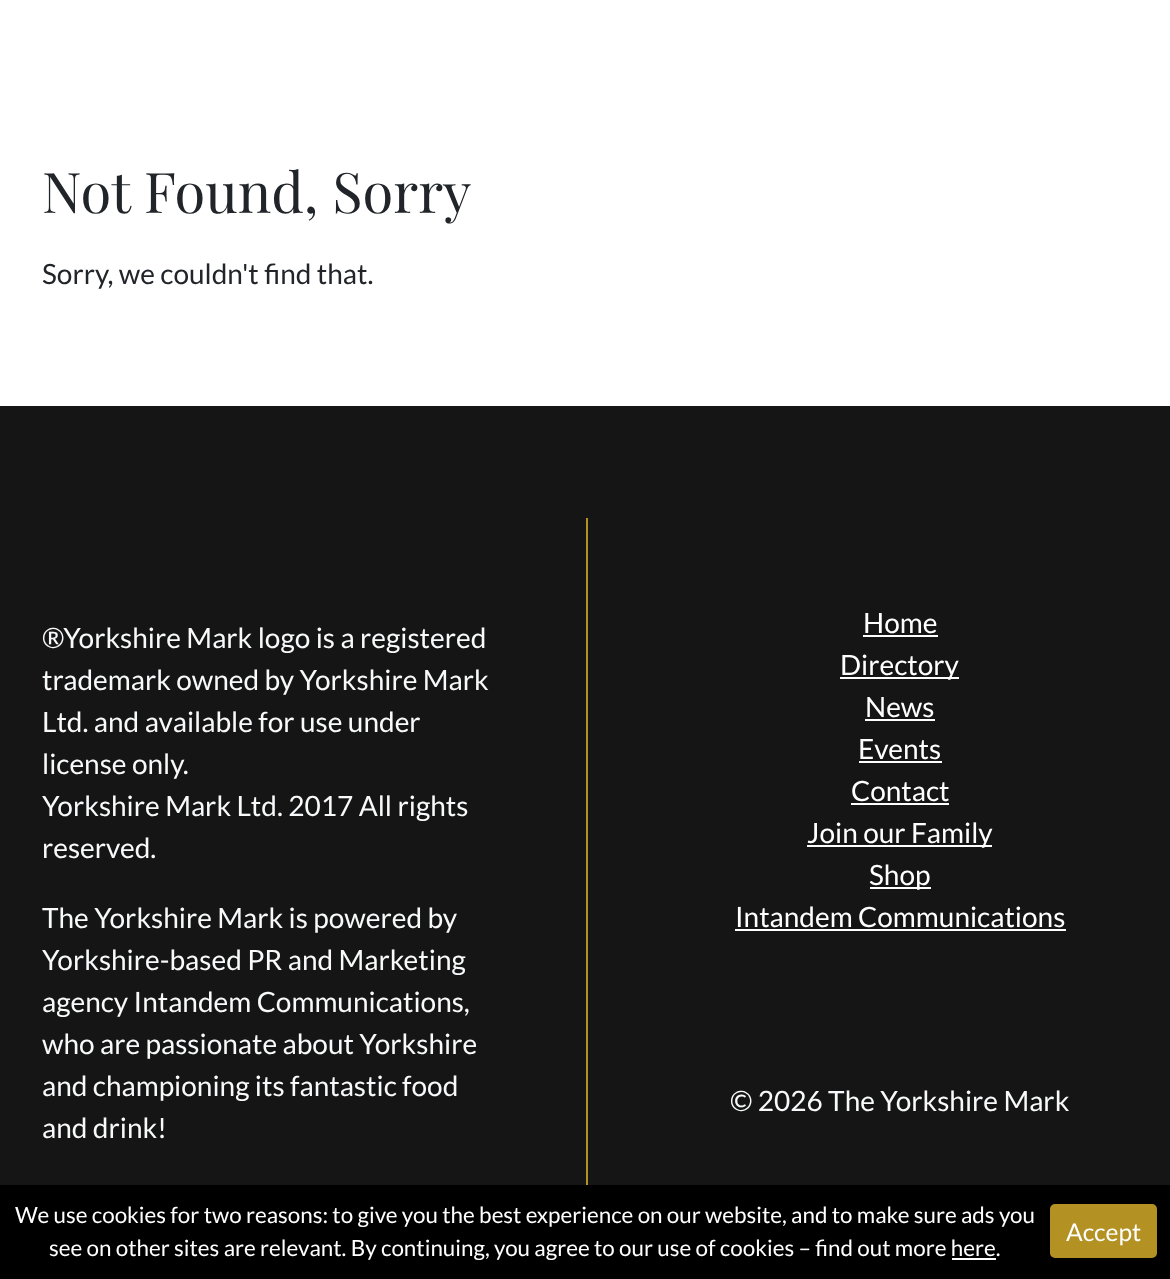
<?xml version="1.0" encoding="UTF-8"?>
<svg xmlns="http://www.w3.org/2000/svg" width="1170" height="1279">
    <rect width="100%" height="100%" fill="#151515"/>
    <rect x="0" y="0" width="1170" height="406" fill="#FFFFFF"/>
    <text x="42" y="213" font-family="Playfair Display" font-size="56" fill="#212529">Not Found, Sorry</text>
    <text x="42" y="284" font-family="Lato" font-size="28" fill="#212529">Sorry, we couldn't find that.</text>
    <text font-family="Lato" font-size="28" fill="#F8F9FA">
        <tspan x="42" y="648">®Yorkshire Mark logo is a registered</tspan>
        <tspan x="42" y="690">trademark owned by Yorkshire Mark</tspan>
        <tspan x="42" y="732">Ltd. and available for use under</tspan>
        <tspan x="42" y="774">license only.</tspan>
        <tspan x="42" y="816">Yorkshire Mark Ltd. 2017 All rights</tspan>
        <tspan x="42" y="858">reserved.</tspan>
    </text>
    <text font-family="Lato" font-size="28" fill="#F8F9FA">
        <tspan x="42" y="928">The Yorkshire Mark is powered by</tspan>
        <tspan x="42" y="970">Yorkshire-based PR and Marketing</tspan>
        <tspan x="42" y="1012">agency Intandem Communications,</tspan>
        <tspan x="42" y="1054">who are passionate about Yorkshire</tspan>
        <tspan x="42" y="1096">and championing its fantastic food</tspan>
        <tspan x="42" y="1138">and drink!</tspan>
    </text>
    <rect x="586" y="518" width="2" height="667" fill="#B39223"/>
    <text x="863" y="633" font-family="Lato" font-size="28" fill="#FFFFFF">Home</text>
    <rect x="863" y="635" width="75" height="2" fill="#FFFFFF"/>
    <rect x="840" y="677" width="119" height="2" fill="#FFFFFF"/>
    <text x="840" y="675" font-family="Lato" font-size="28" fill="#FFFFFF">Directory</text>
    <text x="865" y="717" font-family="Lato" font-size="28" fill="#FFFFFF">News</text>
    <rect x="865" y="719" width="70" height="2" fill="#FFFFFF"/>
    <text x="858" y="759" font-family="Lato" font-size="28" fill="#FFFFFF">Events</text>
    <rect x="859" y="761" width="83" height="2" fill="#FFFFFF"/>
    <text x="851" y="801" font-family="Lato" font-size="28" fill="#FFFFFF">Contact</text>
    <rect x="851" y="803" width="98" height="2" fill="#FFFFFF"/>
    <rect x="807" y="845" width="185" height="2" fill="#FFFFFF"/>
    <text x="807" y="843" font-family="Lato" font-size="28" fill="#FFFFFF">Join our Family</text>
    <rect x="870" y="887" width="61" height="2" fill="#FFFFFF"/>
    <text x="869" y="885" font-family="Lato" font-size="28" fill="#FFFFFF">Shop</text>
    <text x="735" y="927" font-family="Lato" font-size="28" fill="#FFFFFF">Intandem Communications</text>
    <rect x="735" y="929" width="331" height="2" fill="#FFFFFF"/>
    <text x="730" y="1111" font-family="Lato" font-size="28" fill="#F8F9FA">© 2026 The Yorkshire Mark</text>
    <rect x="0" y="1185" width="1170" height="94" fill="#000000"/>
    <text x="15" y="1223" font-family="Lato" font-size="22.4" fill="#FFFFFF">We use cookies for two reasons: to give you the best experience on our website, and to make sure ads you</text>
    <text x="49" y="1256" font-family="Lato" font-size="22.4" fill="#FFFFFF">see on other sites are relevant. By continuing, you agree to our use of cookies – find out more here.</text>
    <rect x="952" y="1258" width="44" height="2" fill="#FFFFFF"/>
    <rect x="1051" y="1205" width="105" height="52" rx="4" fill="#B39223" stroke="#B39223" stroke-width="2"/>
    <text x="1066" y="1241" font-family="Lato" font-size="24.5" fill="#FFFFFF">Accept</text>
</svg>
